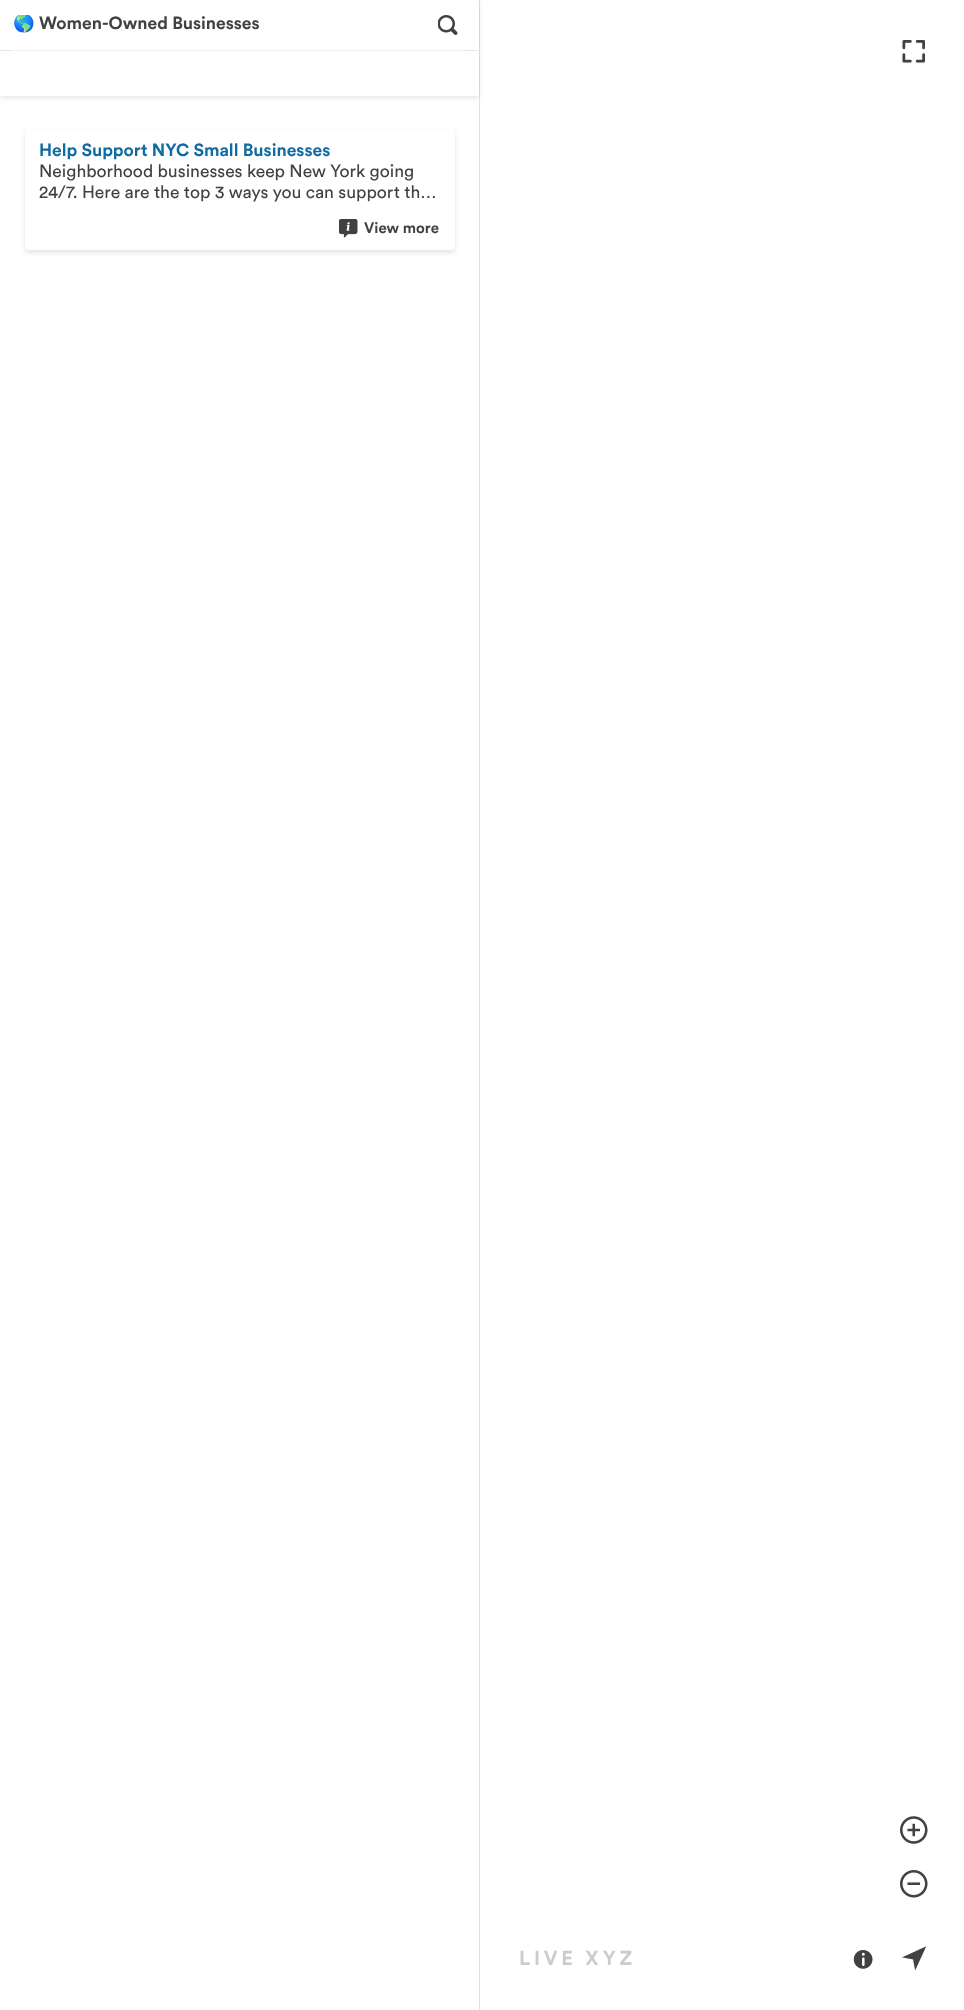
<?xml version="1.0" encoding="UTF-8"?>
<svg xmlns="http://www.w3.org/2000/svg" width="964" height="2010">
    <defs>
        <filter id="blur1" x="-50%" y="-200%" width="200%" height="500%"><feGaussianBlur stdDeviation="2.5"/></filter>
        <clipPath id="clip1"><rect x="13" y="15" width="246" height="20"/></clipPath>
    </defs>
    <rect width="100%" height="100%" fill="#FFFFFF"/>
    <rect x="479" y="0" width="1" height="2010" fill="#E1E1E1"/>
    <rect x="0" y="3" width="479" height="95" fill="#000000" fill-opacity="0.1" filter="url(#blur1)"/>
    <rect x="0" y="0" width="479" height="50" fill="#FFFFFF"/>
    <g clip-path="url(#clip1)">
        <text x="13" y="29" font-family="Noto Color Emoji" font-size="17.5" font-weight="700" fill="#414141">🌎</text>
    </g>
    <text x="39" y="29" font-family="Circular" font-size="17.5" font-weight="700" fill="#414141">Women-Owned Businesses</text>
    <image x="438" y="15" width="20" height="20" href="img_01.png"/>
    <rect x="13" y="50" width="453" height="1" fill="#F2F2F2"/>
    <rect x="0" y="51" width="479" height="45" fill="#FFFFFF"/>
    <rect x="25" y="131" width="430" height="122" rx="4" fill="#000000" fill-opacity="0.1" filter="url(#blur1)"/>
    <rect x="25" y="129" width="430" height="121" rx="4" fill="#FFFFFF"/>
    <text x="39" y="156" font-family="Circular" font-size="17.5" font-weight="700" fill="#106BA3">Help Support NYC Small Businesses</text>
    <text font-family="Circular" font-size="17.5" fill="#414141">
        <tspan x="39" y="177">Neighborhood businesses keep New York going</tspan>
        <tspan x="39" y="198">24/7. Here are the top 3 ways you can support th…</tspan>
    </text>
    <image x="339" y="219" width="19" height="19" href="img_02.png"/>
    <text x="364" y="233" font-family="Circular" font-size="15" font-weight="700" fill="#414141">View more</text>
    <image x="901" y="39" width="25" height="25" href="img_03.png"/>
    <text x="519" y="1965" font-family="Circular" font-size="20" font-weight="700" letter-spacing="3.75" fill="#CCCCCC">LIVE XYZ</text>
    <image x="900" y="1816" width="28" height="28" href="img_04.png"/>
    <image x="900" y="1870" width="28" height="28" href="img_05.png"/>
    <image x="853" y="1949" width="21" height="21" href="img_06.png"/>
    <image x="901" y="1945" width="26" height="26" href="img_07.png"/>
</svg>
